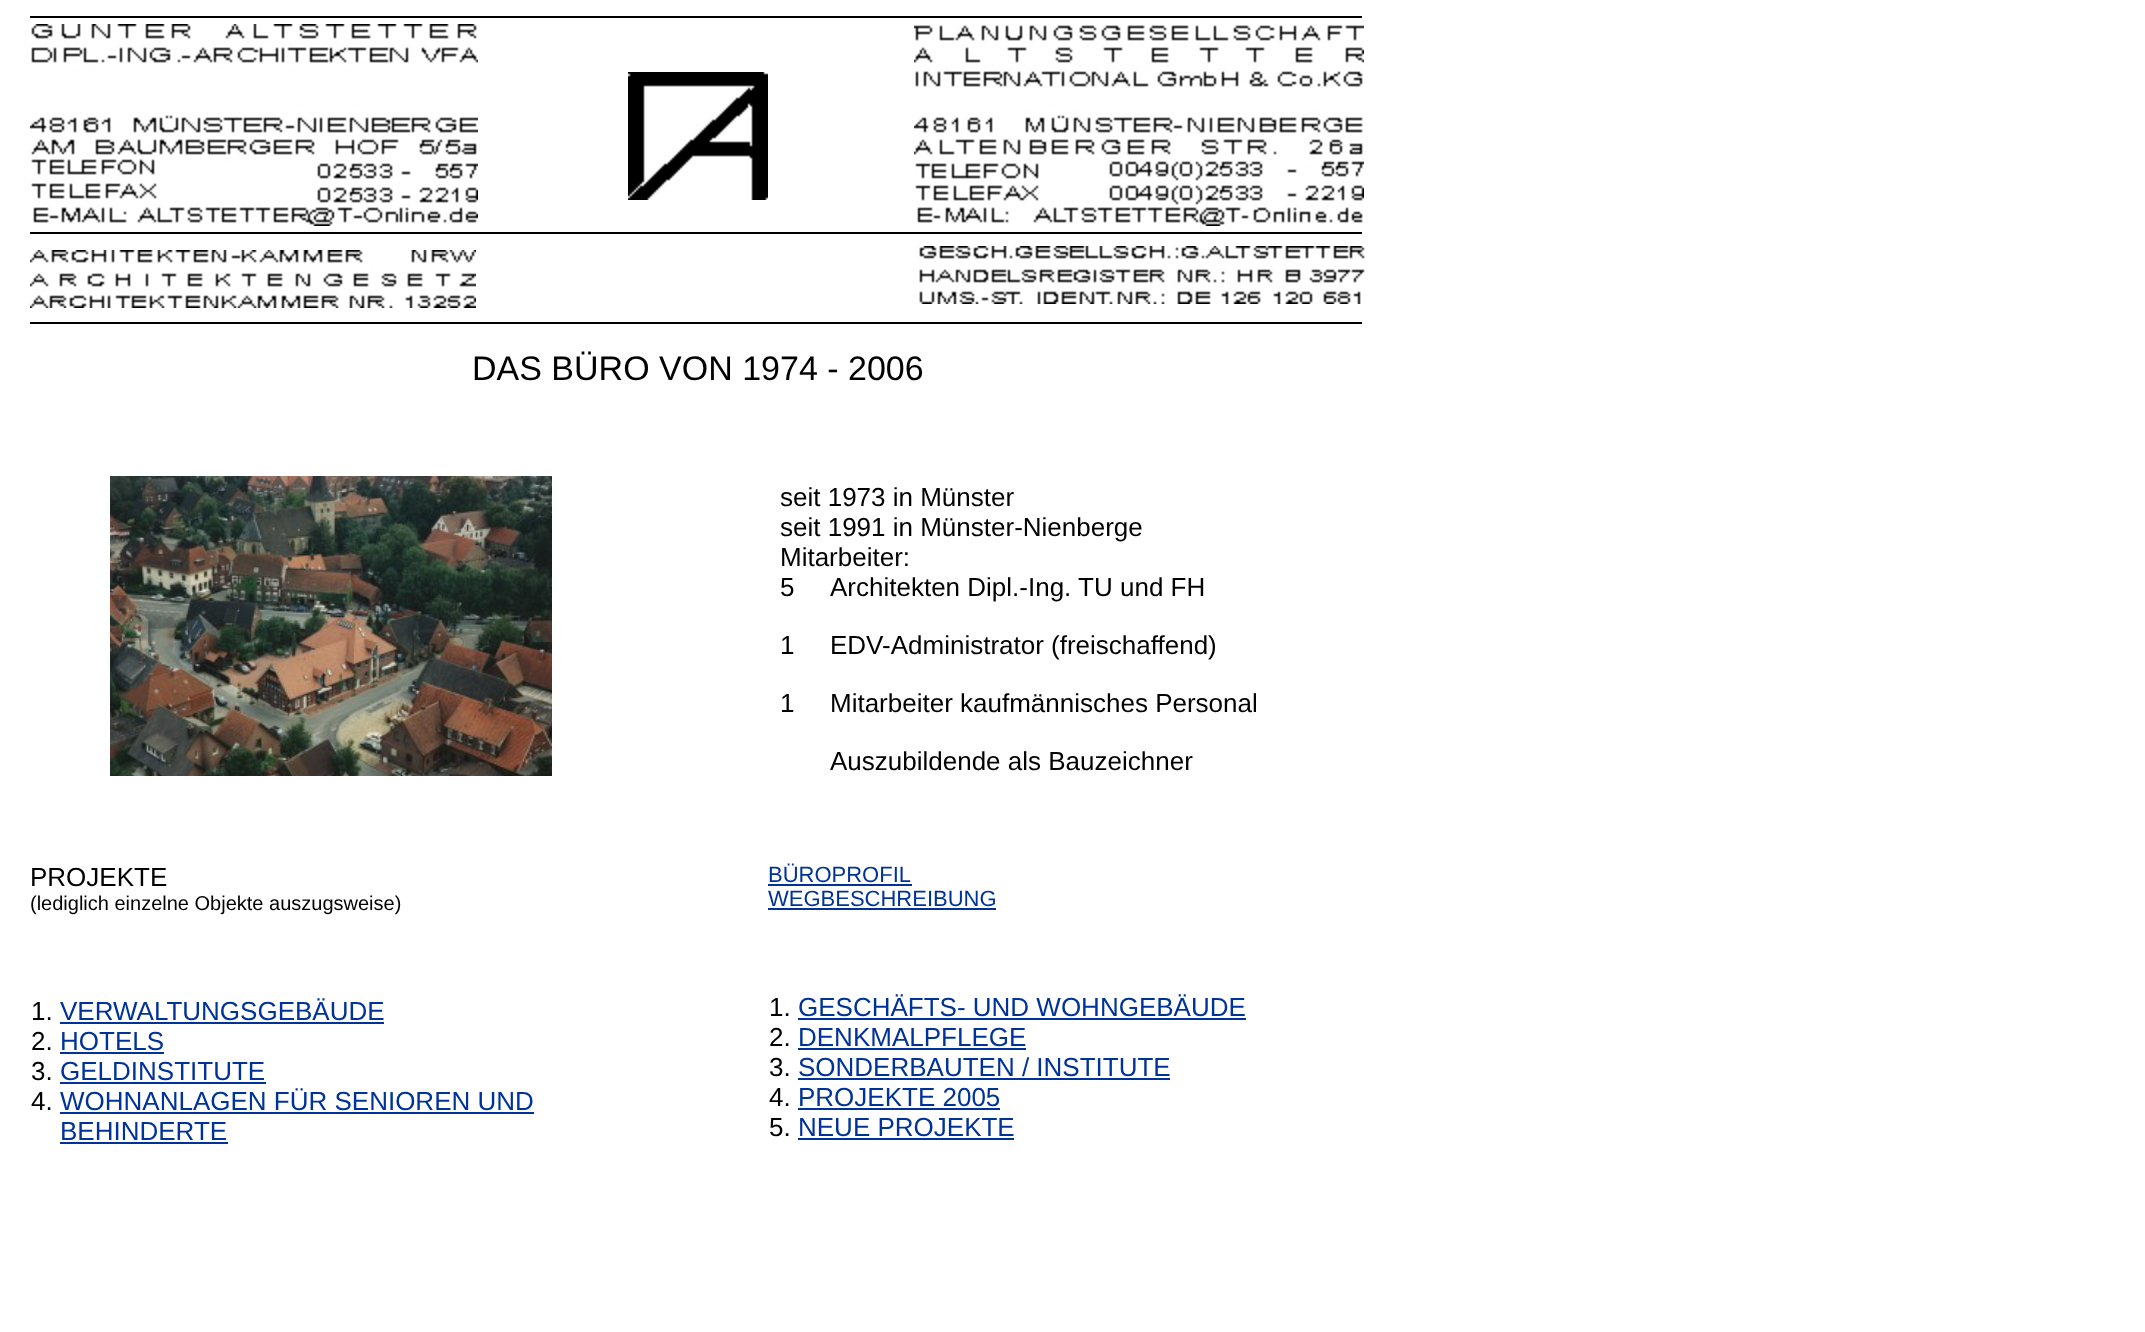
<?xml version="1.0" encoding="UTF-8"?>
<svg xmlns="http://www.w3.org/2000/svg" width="2145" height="1332">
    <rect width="100%" height="100%" fill="#FFFFFF"/>
    <rect x="30" y="16" width="1332" height="2" fill="#000000"/>
    <image x="30" y="24" width="448" height="202" href="img_01.png"/>
    <image x="914" y="25" width="450" height="201" href="img_02.png"/>
    <image x="628" y="72" width="140" height="128" href="img_03.png"/>
    <rect x="30" y="232" width="1332" height="2" fill="#000000"/>
    <image x="30" y="250" width="446" height="58" href="img_04.png"/>
    <image x="919" y="246" width="446" height="58" href="img_05.png"/>
    <rect x="30" y="322" width="1332" height="2" fill="#000000"/>
    <text x="472" y="380" font-family="Liberation Sans" font-size="34" fill="#000000">DAS BÜRO VON 1974 - 2006</text>
    <image x="110" y="476" width="442" height="300" href="img_06.png"/>
    <text font-family="Liberation Sans" font-size="26" fill="#000000">
        <tspan x="780" y="506">seit 1973 in Münster</tspan>
        <tspan x="780" y="536">seit 1991 in Münster-Nienberge</tspan>
        <tspan x="780" y="566">Mitarbeiter:</tspan>
        <tspan x="780" y="596">5</tspan>
    </text>
    <text x="830" y="596" font-family="Liberation Sans" font-size="26" fill="#000000">Architekten Dipl.-Ing. TU und FH</text>
    <text x="780" y="654" font-family="Liberation Sans" font-size="26" fill="#000000">1</text>
    <text x="830" y="654" font-family="Liberation Sans" font-size="26" fill="#000000">EDV-Administrator (freischaffend)</text>
    <text x="780" y="712" font-family="Liberation Sans" font-size="26" fill="#000000">1</text>
    <text x="830" y="712" font-family="Liberation Sans" font-size="26" fill="#000000">Mitarbeiter kaufmännisches Personal</text>
    <text x="830" y="770" font-family="Liberation Sans" font-size="26" fill="#000000">Auszubildende als Bauzeichner</text>
    <text x="30" y="886" font-family="Liberation Sans" font-size="26" fill="#000000">PROJEKTE</text>
    <text x="30" y="910" font-family="Liberation Sans" font-size="20" fill="#000000">(lediglich einzelne Objekte auszugsweise)</text>
    <text x="31" y="1020" font-family="Liberation Sans" font-size="26" fill="#000000">1.</text>
    <text x="60" y="1020" font-family="Liberation Sans" font-size="26" fill="#003399">VERWALTUNGSGEBÄUDE</text>
    <rect x="60" y="1022" width="324" height="2" fill="#003399"/>
    <text x="31" y="1050" font-family="Liberation Sans" font-size="26" fill="#000000">2.</text>
    <text x="60" y="1050" font-family="Liberation Sans" font-size="26" fill="#003399">HOTELS</text>
    <rect x="60" y="1052" width="104" height="2" fill="#003399"/>
    <text x="31" y="1080" font-family="Liberation Sans" font-size="26" fill="#000000">3.</text>
    <text x="60" y="1080" font-family="Liberation Sans" font-size="26" fill="#003399">GELDINSTITUTE</text>
    <rect x="60" y="1082" width="206" height="2" fill="#003399"/>
    <text x="31" y="1110" font-family="Liberation Sans" font-size="26" fill="#000000">4.</text>
    <text x="60" y="1110" font-family="Liberation Sans" font-size="26" fill="#003399">WOHNANLAGEN FÜR SENIOREN UND</text>
    <rect x="60" y="1112" width="474" height="2" fill="#003399"/>
    <text x="60" y="1140" font-family="Liberation Sans" font-size="26" fill="#003399">BEHINDERTE</text>
    <rect x="60" y="1142" width="168" height="2" fill="#003399"/>
    <text x="768" y="882" font-family="Liberation Sans" font-size="22" fill="#003399">BÜROPROFIL</text>
    <rect x="768" y="884" width="144" height="2" fill="#003399"/>
    <text x="768" y="906" font-family="Liberation Sans" font-size="22" fill="#003399">WEGBESCHREIBUNG</text>
    <rect x="768" y="908" width="228" height="2" fill="#003399"/>
    <text x="769" y="1016" font-family="Liberation Sans" font-size="26" fill="#000000">1.</text>
    <text x="798" y="1016" font-family="Liberation Sans" font-size="26" fill="#003399">GESCHÄFTS- UND WOHNGEBÄUDE</text>
    <rect x="798" y="1018" width="448" height="2" fill="#003399"/>
    <text x="769" y="1046" font-family="Liberation Sans" font-size="26" fill="#000000">2.</text>
    <text x="798" y="1046" font-family="Liberation Sans" font-size="26" fill="#003399">DENKMALPFLEGE</text>
    <rect x="798" y="1048" width="228" height="2" fill="#003399"/>
    <text x="769" y="1076" font-family="Liberation Sans" font-size="26" fill="#000000">3.</text>
    <text x="798" y="1076" font-family="Liberation Sans" font-size="26" fill="#003399">SONDERBAUTEN / INSTITUTE</text>
    <rect x="798" y="1078" width="372" height="2" fill="#003399"/>
    <text x="769" y="1106" font-family="Liberation Sans" font-size="26" fill="#000000">4.</text>
    <text x="798" y="1106" font-family="Liberation Sans" font-size="26" fill="#003399">PROJEKTE 2005</text>
    <rect x="798" y="1108" width="202" height="2" fill="#003399"/>
    <text x="769" y="1136" font-family="Liberation Sans" font-size="26" fill="#000000">5.</text>
    <text x="798" y="1136" font-family="Liberation Sans" font-size="26" fill="#003399">NEUE PROJEKTE</text>
    <rect x="798" y="1138" width="216" height="2" fill="#003399"/>
</svg>
